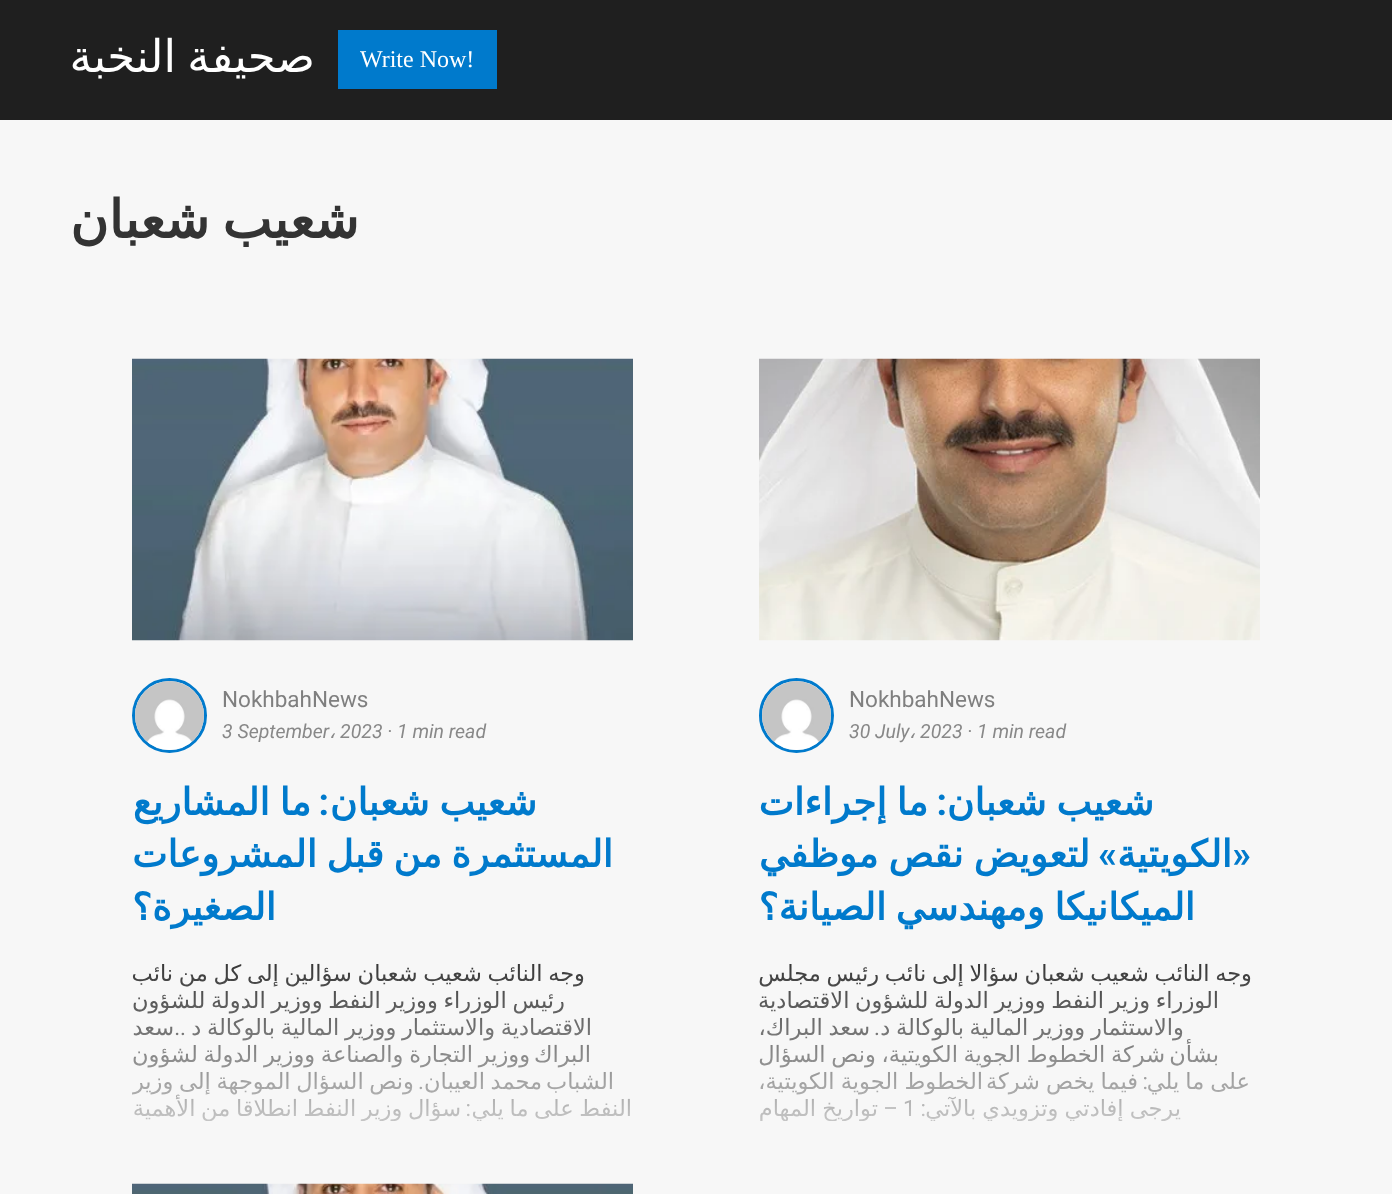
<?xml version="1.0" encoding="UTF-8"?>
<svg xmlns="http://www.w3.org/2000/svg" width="1392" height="1194">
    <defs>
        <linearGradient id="g1" gradientUnits="userSpaceOnUse" x1="1009" y1="960" x2="1009" y2="1176"><stop offset="0" stop-color="#333333"/><stop offset="1" stop-color="#F7F7F7"/></linearGradient>
        <linearGradient id="g2" gradientUnits="userSpaceOnUse" x1="1009" y1="960" x2="1009" y2="1176"><stop offset="0" stop-color="#333333"/><stop offset="1" stop-color="#F6F6F6"/></linearGradient>
        <clipPath id="clip1"><rect x="696" y="296" width="627" height="825"/></clipPath>
        <linearGradient id="g3" gradientUnits="userSpaceOnUse" x1="383" y1="960" x2="383" y2="1176"><stop offset="0" stop-color="#333333"/><stop offset="1" stop-color="#F7F7F7"/></linearGradient>
        <linearGradient id="g4" gradientUnits="userSpaceOnUse" x1="383" y1="960" x2="383" y2="1176"><stop offset="0" stop-color="#333333"/><stop offset="1" stop-color="#F6F6F6"/></linearGradient>
        <clipPath id="clip2"><rect x="69" y="296" width="627" height="825"/></clipPath>
    </defs>
    <rect width="100%" height="100%" fill="#F7F7F7"/>
    <rect x="0" y="0" width="1392" height="120" fill="#1F1F1F"/>
    <rect x="338" y="30" width="159" height="59" fill="#007ACC"/>
    <text x="360" y="67" font-family="Liberation Serif" font-size="24" fill="#FFFFFF">Write Now!</text>
    <text x="315" y="72" word-spacing="-3" font-family="DejaVu Sans" font-size="45" direction="rtl" fill="#FFFFFF">صحيفة النخبة</text>
    <text x="359" y="238" word-spacing="-4" font-family="DejaVu Sans" font-size="52.5" font-weight="700" direction="rtl" fill="#333333">شعيب شعبان</text>
    <image x="759" y="358" width="501" height="283" href="img_01.png"/>
    <text x="849" y="707" font-family="Roboto" font-size="22.5" fill="#7F7F7F">NokhbahNews</text>
    <circle cx="796.5" cy="715.5" r="36" fill="none" stroke="#007ACC" stroke-width="3"/>
    <image x="762" y="681" width="69" height="69" href="img_02.png"/>
    <text x="920" y="738" font-family="Roboto" font-size="19.5" font-style="italic" fill="#888888">2023 · 1 min read</text>
    <text x="909" y="738" font-family="DejaVu Sans" font-size="19.5" font-style="italic" fill="#888888">،</text>
    <text x="849" y="738" font-family="Roboto" font-size="19.5" font-style="italic" fill="#888888">30 July</text>
    <text x="1154" y="815" word-spacing="-2" font-family="DejaVu Sans" font-size="37.5" font-weight="700" direction="rtl" fill="#007ACC">شعيب شعبان</text>
    <text x="947" y="815" font-family="Roboto" font-size="37.5" font-weight="700" direction="rtl" fill="#007ACC">:</text>
    <text x="928" y="815" word-spacing="-2" font-family="DejaVu Sans" font-size="37.5" font-weight="700" direction="rtl" fill="#007ACC">ما إجراءات</text>
    <text x="1251" y="867" font-family="Roboto" font-size="37.5" font-weight="700" direction="rtl" fill="#007ACC">«</text>
    <text x="1232" y="867" font-family="DejaVu Sans" font-size="37.5" font-weight="700" direction="rtl" fill="#007ACC">الكويتية</text>
    <text x="1117" y="867" font-family="Roboto" font-size="37.5" font-weight="700" direction="rtl" fill="#007ACC">»</text>
    <text x="1090" y="867" word-spacing="-2" font-family="DejaVu Sans" font-size="37.5" font-weight="700" direction="rtl" fill="#007ACC">لتعويض نقص موظفي</text>
    <text x="1195" y="920" word-spacing="-2.5" font-family="DejaVu Sans" font-size="37.5" font-weight="700" direction="rtl" fill="#007ACC">الميكانيكا ومهندسي الصيانة؟</text>
    <text x="1252" y="981" word-spacing="-1.5" font-family="DejaVu Sans" font-size="22.5" direction="rtl" fill="url(#g1)">وجه النائب شعيب شعبان سؤالا إلى نائب رئيس مجلس</text>
    <text x="1219" y="1008" word-spacing="-1.5" font-family="DejaVu Sans" font-size="22.5" direction="rtl" fill="url(#g1)">الوزراء وزير النفط ووزير الدولة للشؤون الاقتصادية</text>
    <text x="1184" y="1035" word-spacing="-1.5" font-family="DejaVu Sans" font-size="22.5" direction="rtl" fill="url(#g1)">والاستثمار ووزير المالية بالوكالة د</text>
    <text x="880" y="1035" font-family="Roboto" font-size="22.5" direction="rtl" fill="url(#g1)">.</text>
    <text x="870" y="1035" word-spacing="-1.5" font-family="DejaVu Sans" font-size="22.5" direction="rtl" fill="url(#g1)">سعد البراك،</text>
    <text x="1165" y="1062" word-spacing="-1.5" font-family="DejaVu Sans" font-size="22.5" direction="rtl" fill="url(#g1)">شركة الخطوط الجوية الكويتية، ونص السؤال</text>
    <text x="1219" y="1062" font-family="DejaVu Sans" font-size="22.5" direction="rtl" fill="url(#g2)">بشأن</text>
    <text x="1250" y="1089" word-spacing="-1" font-family="DejaVu Sans" font-size="22.5" direction="rtl" fill="url(#g1)">على ما يلي</text>
    <text x="1148" y="1089" font-family="Roboto" font-size="22.5" direction="rtl" fill="url(#g1)">:</text>
    <text x="1138" y="1089" word-spacing="-1" font-family="DejaVu Sans" font-size="22.5" direction="rtl" fill="url(#g1)">فيما يخص شركة</text>
    <text x="983" y="1089" word-spacing="-1" font-family="DejaVu Sans" font-size="22.5" direction="rtl" fill="url(#g1)">الخطوط الجوية الكويتية،</text>
    <g clip-path="url(#clip1)">
        <text x="1181" y="1116" word-spacing="-1" font-family="DejaVu Sans" font-size="22.5" direction="rtl" fill="url(#g1)">يرجى إفادتي وتزويدي بالآتي</text>
    </g>
    <text x="926" y="1116" font-family="Roboto" font-size="22.5" direction="rtl" fill="url(#g1)">:</text>
    <text x="903" y="1116" font-family="Roboto" font-size="22.5" fill="url(#g1)">1</text>
    <text x="898" y="1116" font-family="Roboto" font-size="22.5" direction="rtl" fill="url(#g1)">–</text>
    <g clip-path="url(#clip1)">
        <text x="878" y="1116" word-spacing="-1" font-family="DejaVu Sans" font-size="22.5" direction="rtl" fill="url(#g1)">تواريخ المهام</text>
    </g>
    <image x="132" y="358" width="501" height="283" href="img_03.png"/>
    <text x="222" y="707" font-family="Roboto" font-size="22.5" fill="#7F7F7F">NokhbahNews</text>
    <circle cx="169.5" cy="715.5" r="36" fill="none" stroke="#007ACC" stroke-width="3"/>
    <image x="135" y="681" width="69" height="69" href="img_04.png"/>
    <text x="340" y="738" font-family="Roboto" font-size="19.5" font-style="italic" fill="#888888">2023 · 1 min read</text>
    <text x="329" y="738" font-family="DejaVu Sans" font-size="19.5" font-style="italic" fill="#888888">،</text>
    <text x="222" y="738" font-family="Roboto" font-size="19.5" font-style="italic" fill="#888888">3 September</text>
    <text x="537" y="815" word-spacing="-2" font-family="DejaVu Sans" font-size="37.5" font-weight="700" direction="rtl" fill="#007ACC">شعيب شعبان</text>
    <text x="329" y="815" font-family="Roboto" font-size="37.5" font-weight="700" direction="rtl" fill="#007ACC">:</text>
    <text x="311" y="815" word-spacing="-2" font-family="DejaVu Sans" font-size="37.5" font-weight="700" direction="rtl" fill="#007ACC">ما المشاريع</text>
    <text x="613" y="867" word-spacing="-2.5" font-family="DejaVu Sans" font-size="37.5" font-weight="700" direction="rtl" fill="#007ACC">المستثمرة من قبل المشروعات</text>
    <text x="276" y="920" font-family="DejaVu Sans" font-size="37.5" font-weight="700" direction="rtl" fill="#007ACC">الصغيرة؟</text>
    <text x="585" y="981" word-spacing="-1.5" font-family="DejaVu Sans" font-size="22.5" direction="rtl" fill="url(#g3)">وجه النائب شعيب شعبان سؤالين إلى كل من نائب</text>
    <text x="565" y="1008" word-spacing="-1.5" font-family="DejaVu Sans" font-size="22.5" direction="rtl" fill="url(#g3)">رئيس الوزراء ووزير النفط ووزير الدولة للشؤون</text>
    <text x="592" y="1035" word-spacing="-1.5" font-family="DejaVu Sans" font-size="22.5" direction="rtl" fill="url(#g3)">الاقتصادية والاستثمار ووزير المالية بالوكالة د</text>
    <text x="186" y="1035" font-family="Roboto" font-size="22.5" direction="rtl" fill="url(#g3)">..</text>
    <text x="174" y="1035" font-family="DejaVu Sans" font-size="22.5" direction="rtl" fill="url(#g3)">سعد</text>
    <text x="530" y="1062" word-spacing="-1.5" font-family="DejaVu Sans" font-size="22.5" direction="rtl" fill="url(#g3)">ووزير التجارة والصناعة ووزير الدولة لشؤون</text>
    <text x="591" y="1062" font-family="DejaVu Sans" font-size="22.5" direction="rtl" fill="url(#g4)">البراك</text>
    <text x="614" y="1089" font-family="DejaVu Sans" font-size="22.5" direction="rtl" fill="url(#g3)">الشباب</text>
    <text x="542" y="1089" word-spacing="-1.5" font-family="DejaVu Sans" font-size="22.5" direction="rtl" fill="url(#g3)">محمد العيبان</text>
    <text x="424" y="1089" font-family="Roboto" font-size="22.5" direction="rtl" fill="url(#g3)">.</text>
    <text x="414" y="1089" word-spacing="-1.5" font-family="DejaVu Sans" font-size="22.5" direction="rtl" fill="url(#g3)">ونص السؤال الموجهة إلى وزير</text>
    <g clip-path="url(#clip2)">
        <text x="632" y="1116" word-spacing="-1.5" font-family="DejaVu Sans" font-size="22.5" direction="rtl" fill="url(#g3)">النفط على ما يلي</text>
        <text x="461" y="1116" word-spacing="-1.5" font-family="DejaVu Sans" font-size="22.5" direction="rtl" fill="url(#g3)">سؤال وزير النفط انطلاقا من الأهمية</text>
    </g>
    <text x="471" y="1116" font-family="Roboto" font-size="22.5" direction="rtl" fill="url(#g3)">:</text>
    <image x="132" y="1183" width="501" height="11" href="img_05.png"/>
</svg>
